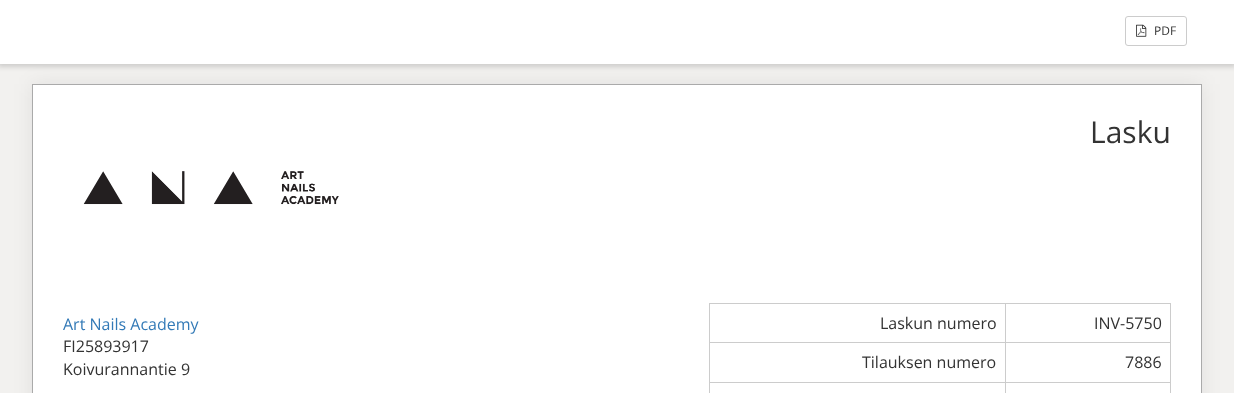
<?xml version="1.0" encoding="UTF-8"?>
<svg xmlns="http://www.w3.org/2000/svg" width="1234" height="393">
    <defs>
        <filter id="blur1" x="-50%" y="-200%" width="200%" height="500%"><feGaussianBlur stdDeviation="2.5"/></filter>
        <filter id="blur2" x="-50%" y="-200%" width="200%" height="500%"><feGaussianBlur stdDeviation="10"/></filter>
    </defs>
    <rect width="100%" height="100%" fill="#F2F1EF"/>
    <rect x="-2" y="-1" width="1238" height="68" fill="#000000" fill-opacity="0.15" filter="url(#blur1)"/>
    <rect x="0" y="0" width="1234" height="64" fill="#FFFFFF"/>
    <rect x="1125.5" y="16.5" width="61" height="29" rx="2.5" fill="none" stroke="#CCCCCC"/>
    <image x="1136" y="24" width="11" height="13" href="img_01.png"/>
    <text x="1154" y="35" font-family="Open Sans" font-size="12" fill="#333333">PDF</text>
    <rect x="32" y="84" width="1170" height="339" fill="#000000" fill-opacity="0.07" filter="url(#blur2)"/>
    <rect x="32.5" y="84.5" width="1169" height="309" fill="#FFFFFF" stroke="#AAAAAA"/>
    <text x="1090" y="143" font-family="Open Sans" font-size="30" fill="#333333">Lasku</text>
    <image x="83" y="171" width="256" height="34" href="img_02.png"/>
    <text x="63" y="330" font-family="Open Sans" font-size="16" fill="#337AB7">Art Nails Academy</text>
    <text font-family="Open Sans" font-size="16" fill="#333333">
        <tspan x="63" y="352">FI25893917</tspan>
        <tspan x="63" y="375">Koivurannantie 9</tspan>
    </text>
    <rect x="709" y="303" width="462" height="1" fill="#CCCCCC"/>
    <rect x="1170" y="303" width="1" height="90" fill="#CCCCCC"/>
    <rect x="709" y="303" width="1" height="90" fill="#CCCCCC"/>
    <text x="880" y="329" font-family="Open Sans" font-size="16" fill="#333333">Laskun numero</text>
    <rect x="1005" y="342" width="166" height="1" fill="#CCCCCC"/>
    <rect x="1005" y="382" width="166" height="1" fill="#CCCCCC"/>
    <rect x="1005" y="382" width="1" height="11" fill="#CCCCCC"/>
    <rect x="709" y="382" width="297" height="1" fill="#CCCCCC"/>
    <rect x="1005" y="342" width="1" height="41" fill="#CCCCCC"/>
    <rect x="709" y="342" width="297" height="1" fill="#CCCCCC"/>
    <rect x="1005" y="303" width="1" height="40" fill="#CCCCCC"/>
    <text x="1094" y="329" font-family="Open Sans" font-size="16" fill="#333333">INV-5750</text>
    <text x="862" y="368" font-family="Open Sans" font-size="16" fill="#333333">Tilauksen numero</text>
    <text x="1125" y="368" font-family="Open Sans" font-size="16" fill="#333333">7886</text>
</svg>
